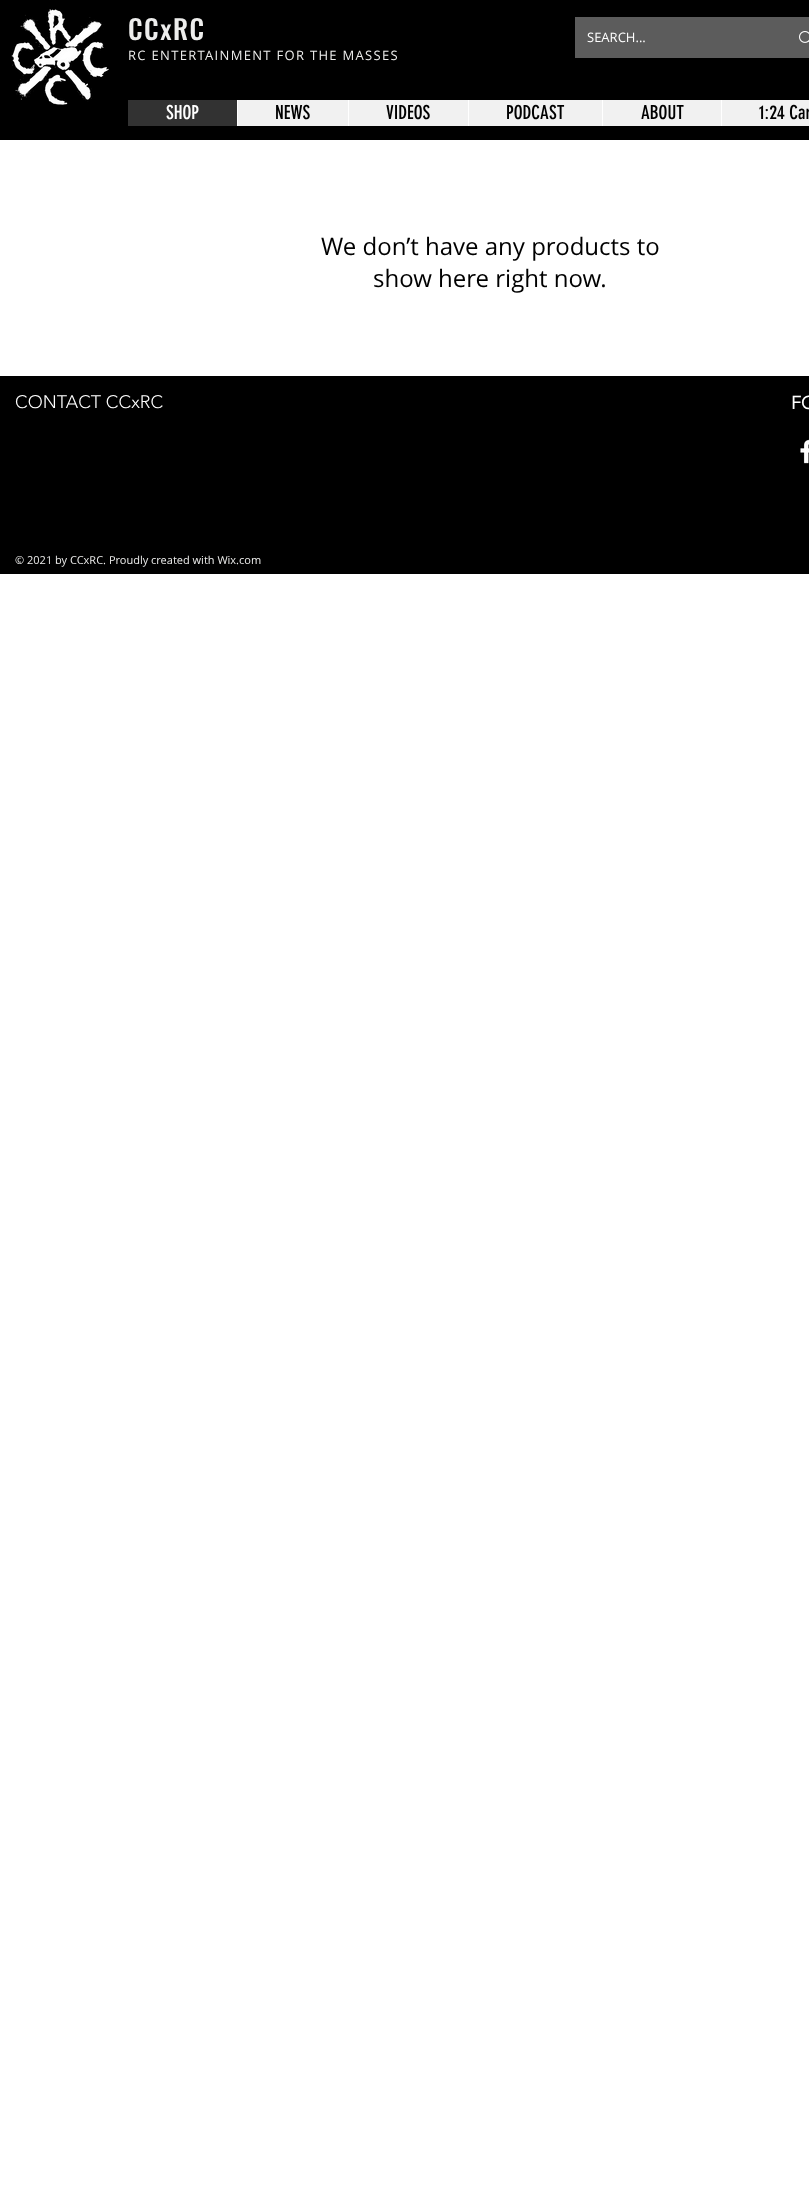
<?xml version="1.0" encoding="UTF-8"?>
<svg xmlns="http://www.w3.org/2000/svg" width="809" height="2206">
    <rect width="100%" height="100%" fill="#FFFFFF"/>
    <rect x="0" y="0" width="809" height="140" fill="#000000"/>
    <image x="11" y="9" width="98" height="96" href="img_01.png"/>
    <text x="128" y="40" font-family="Oswald" font-size="27" font-weight="500" letter-spacing="1.5" fill="#EDEDEC">CCxRC</text>
    <text x="128" y="60" font-family="Open Sans" font-size="13" letter-spacing="1.3" fill="#EDEDEC">RC ENTERTAINMENT FOR THE MASSES</text>
    <rect x="575" y="17" width="234" height="41" fill="#5C5C5C"/>
    <text x="587" y="42" font-family="Open Sans" font-size="13" fill="#FFFFFF">SEARCH...</text>
    <image x="799" y="31" width="10" height="12" href="img_02.png"/>
    <rect x="238" y="100" width="571" height="26" fill="#F1F1F1"/>
    <rect x="128" y="100" width="109" height="26" fill="#323232"/>
    <text x="166" y="119" font-family="'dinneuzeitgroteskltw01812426'" font-size="19" fill="#FFFFFF">SHOP</text>
    <rect x="237" y="100" width="1" height="26" fill="#FFFFFF"/>
    <text x="275" y="119" font-family="'dinneuzeitgroteskltw01812426'" font-size="19" fill="#000000">NEWS</text>
    <rect x="348" y="100" width="1" height="26" fill="#FFFFFF"/>
    <text x="386" y="119" font-family="'dinneuzeitgroteskltw01812426'" font-size="19" fill="#000000">VIDEOS</text>
    <rect x="468" y="100" width="1" height="26" fill="#FFFFFF"/>
    <text x="506" y="119" font-family="'dinneuzeitgroteskltw01812426'" font-size="19" fill="#000000">PODCAST</text>
    <rect x="602" y="100" width="1" height="26" fill="#FFFFFF"/>
    <text x="641" y="119" font-family="'dinneuzeitgroteskltw01812426'" font-size="19" fill="#000000">ABOUT</text>
    <rect x="721" y="100" width="1" height="26" fill="#FFFFFF"/>
    <text x="759" y="119" font-family="'dinneuzeitgroteskltw01812426'" font-size="19" fill="#000000">1:24 Car</text>
    <text x="321" y="255" font-family="Open Sans" font-size="24" fill="#000000">We don’t have any products to</text>
    <text x="373" y="287" font-family="Open Sans" font-size="24" fill="#000000">show here right now.</text>
    <rect x="0" y="376" width="809" height="198" fill="#000000"/>
    <text x="15" y="408" font-family="'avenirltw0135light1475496'" font-size="18" font-weight="300" fill="#FFFFFF">CONTACT CCxRC</text>
    <text x="791" y="409" font-family="'avenirltw0135light1475496'" font-size="18" font-weight="700" fill="#FFFFFF">FO</text>
    <image x="800" y="439" width="9" height="25" href="img_03.png"/>
    <text x="15" y="564" font-family="Open Sans" font-size="11" fill="#EDEDEC">© 2021 by CCxRC. Proudly created with Wix.com</text>
</svg>
